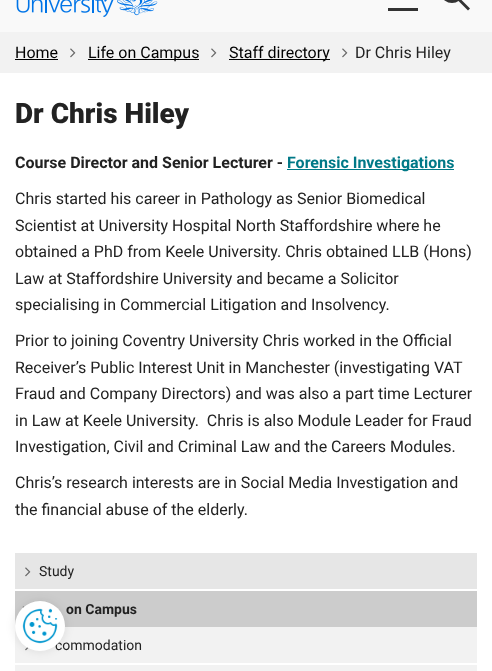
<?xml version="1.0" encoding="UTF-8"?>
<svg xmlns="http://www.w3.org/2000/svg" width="492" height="671">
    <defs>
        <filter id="blur1" x="-50%" y="-200%" width="200%" height="500%"><feGaussianBlur stdDeviation="5"/></filter>
    </defs>
    <rect width="100%" height="100%" fill="#FFFFFF"/>
    <rect x="0" y="0" width="492" height="32" fill="#F9F9F9"/>
    <image x="16" y="0" width="142" height="17" href="img_01.png"/>
    <rect x="388" y="8" width="30" height="3" fill="#333333"/>
    <path d="M 445 -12.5 L 447 -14.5 L 470 8.5 L 468 10.5 Z" fill="#333333"/>
    <rect x="443.5" y="-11.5" width="17" height="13" rx="8.5" fill="none" stroke="#333333" stroke-width="3"/>
    <rect x="0" y="32" width="492" height="41" fill="#F2F2F2"/>
    <text x="15" y="58" font-family="Roboto" font-size="16" fill="#000000">Home</text>
    <rect x="15" y="59" width="43" height="1" fill="#000000"/>
    <image x="70" y="48" width="6" height="10" href="img_02.png"/>
    <rect x="88" y="59" width="111" height="1" fill="#000000"/>
    <text x="88" y="58" font-family="Roboto" font-size="16" fill="#000000">Life on Campus</text>
    <image x="211" y="48" width="6" height="10" href="img_02.png"/>
    <rect x="229" y="59" width="101" height="1" fill="#000000"/>
    <text x="229" y="58" font-family="Roboto" font-size="16" fill="#000000">Staff directory</text>
    <image x="342" y="48" width="6" height="10" href="img_02.png"/>
    <text x="355" y="58" font-family="Roboto" font-size="16" fill="#222222">Dr Chris Hiley</text>
    <text x="15" y="123" font-family="Roboto" font-size="28" font-weight="900" fill="#222222">Dr Chris Hiley</text>
    <text x="15" y="168" font-family="Roboto" font-size="16" font-weight="700" fill="#222222">Course Director and Senior Lecturer -</text>
    <rect x="287" y="169" width="167" height="1" fill="#007987"/>
    <text x="287" y="168" font-family="Roboto" font-size="16" font-weight="700" fill="#007987">Forensic Investigations</text>
    <text font-family="Roboto" font-size="16" fill="#222222">
        <tspan x="15" y="204">Chris started his career in Pathology as Senior Biomedical</tspan>
        <tspan x="15" y="231">Scientist at University Hospital North Staffordshire where he</tspan>
        <tspan x="15" y="257">obtained a PhD from Keele University. Chris obtained LLB (Hons)</tspan>
        <tspan x="15" y="284">Law at Staffordshire University and became a Solicitor</tspan>
        <tspan x="15" y="310">specialising in Commercial Litigation and Insolvency.</tspan>
    </text>
    <text font-family="Roboto" font-size="16" fill="#222222" xml:space="preserve"><tspan x="15" y="346">Prior to joining Coventry University Chris worked in the Official</tspan><tspan x="15" y="373">Receiver’s Public Interest Unit in Manchester (investigating VAT</tspan><tspan x="15" y="399">Fraud and Company Directors) and was also a part time Lecturer</tspan><tspan x="15" y="426">in Law at Keele University.  Chris is also Module Leader for Fraud</tspan><tspan x="15" y="452">Investigation, Civil and Criminal Law and the Careers Modules.</tspan></text>
    <text font-family="Roboto" font-size="16" fill="#222222">
        <tspan x="15" y="488">Chris’s research interests are in Social Media Investigation and</tspan>
        <tspan x="15" y="515">the financial abuse of the elderly.</tspan>
    </text>
    <rect x="15" y="553" width="462" height="36" fill="#E6E6E6"/>
    <image x="25" y="567" width="6" height="10" href="img_03.png"/>
    <text x="39" y="576" font-family="Roboto" font-size="14" fill="#222222">Study</text>
    <rect x="15" y="591" width="462" height="36" fill="#CCCCCC"/>
    <image x="22" y="606" width="2" height="2" href="img_04.png"/>
    <text x="66" y="614" font-family="Roboto" font-size="14" font-weight="700" fill="#222222">on Campus</text>
    <rect x="15" y="627" width="462" height="36" fill="#F2F2F2"/>
    <image x="25" y="647" width="4" height="4" href="img_05.png"/>
    <text x="55" y="650" font-family="Roboto" font-size="14" fill="#222222">commodation</text>
    <rect x="15" y="665" width="462" height="6" fill="#F2F2F2"/>
    <rect x="15" y="601" width="50" height="50" rx="25" fill="#000000" fill-opacity="0.1" filter="url(#blur1)"/>
    <circle cx="40" cy="626" r="25" fill="#FFFFFF"/>
    <image x="22" y="608" width="36" height="36" href="img_06.png"/>
</svg>
